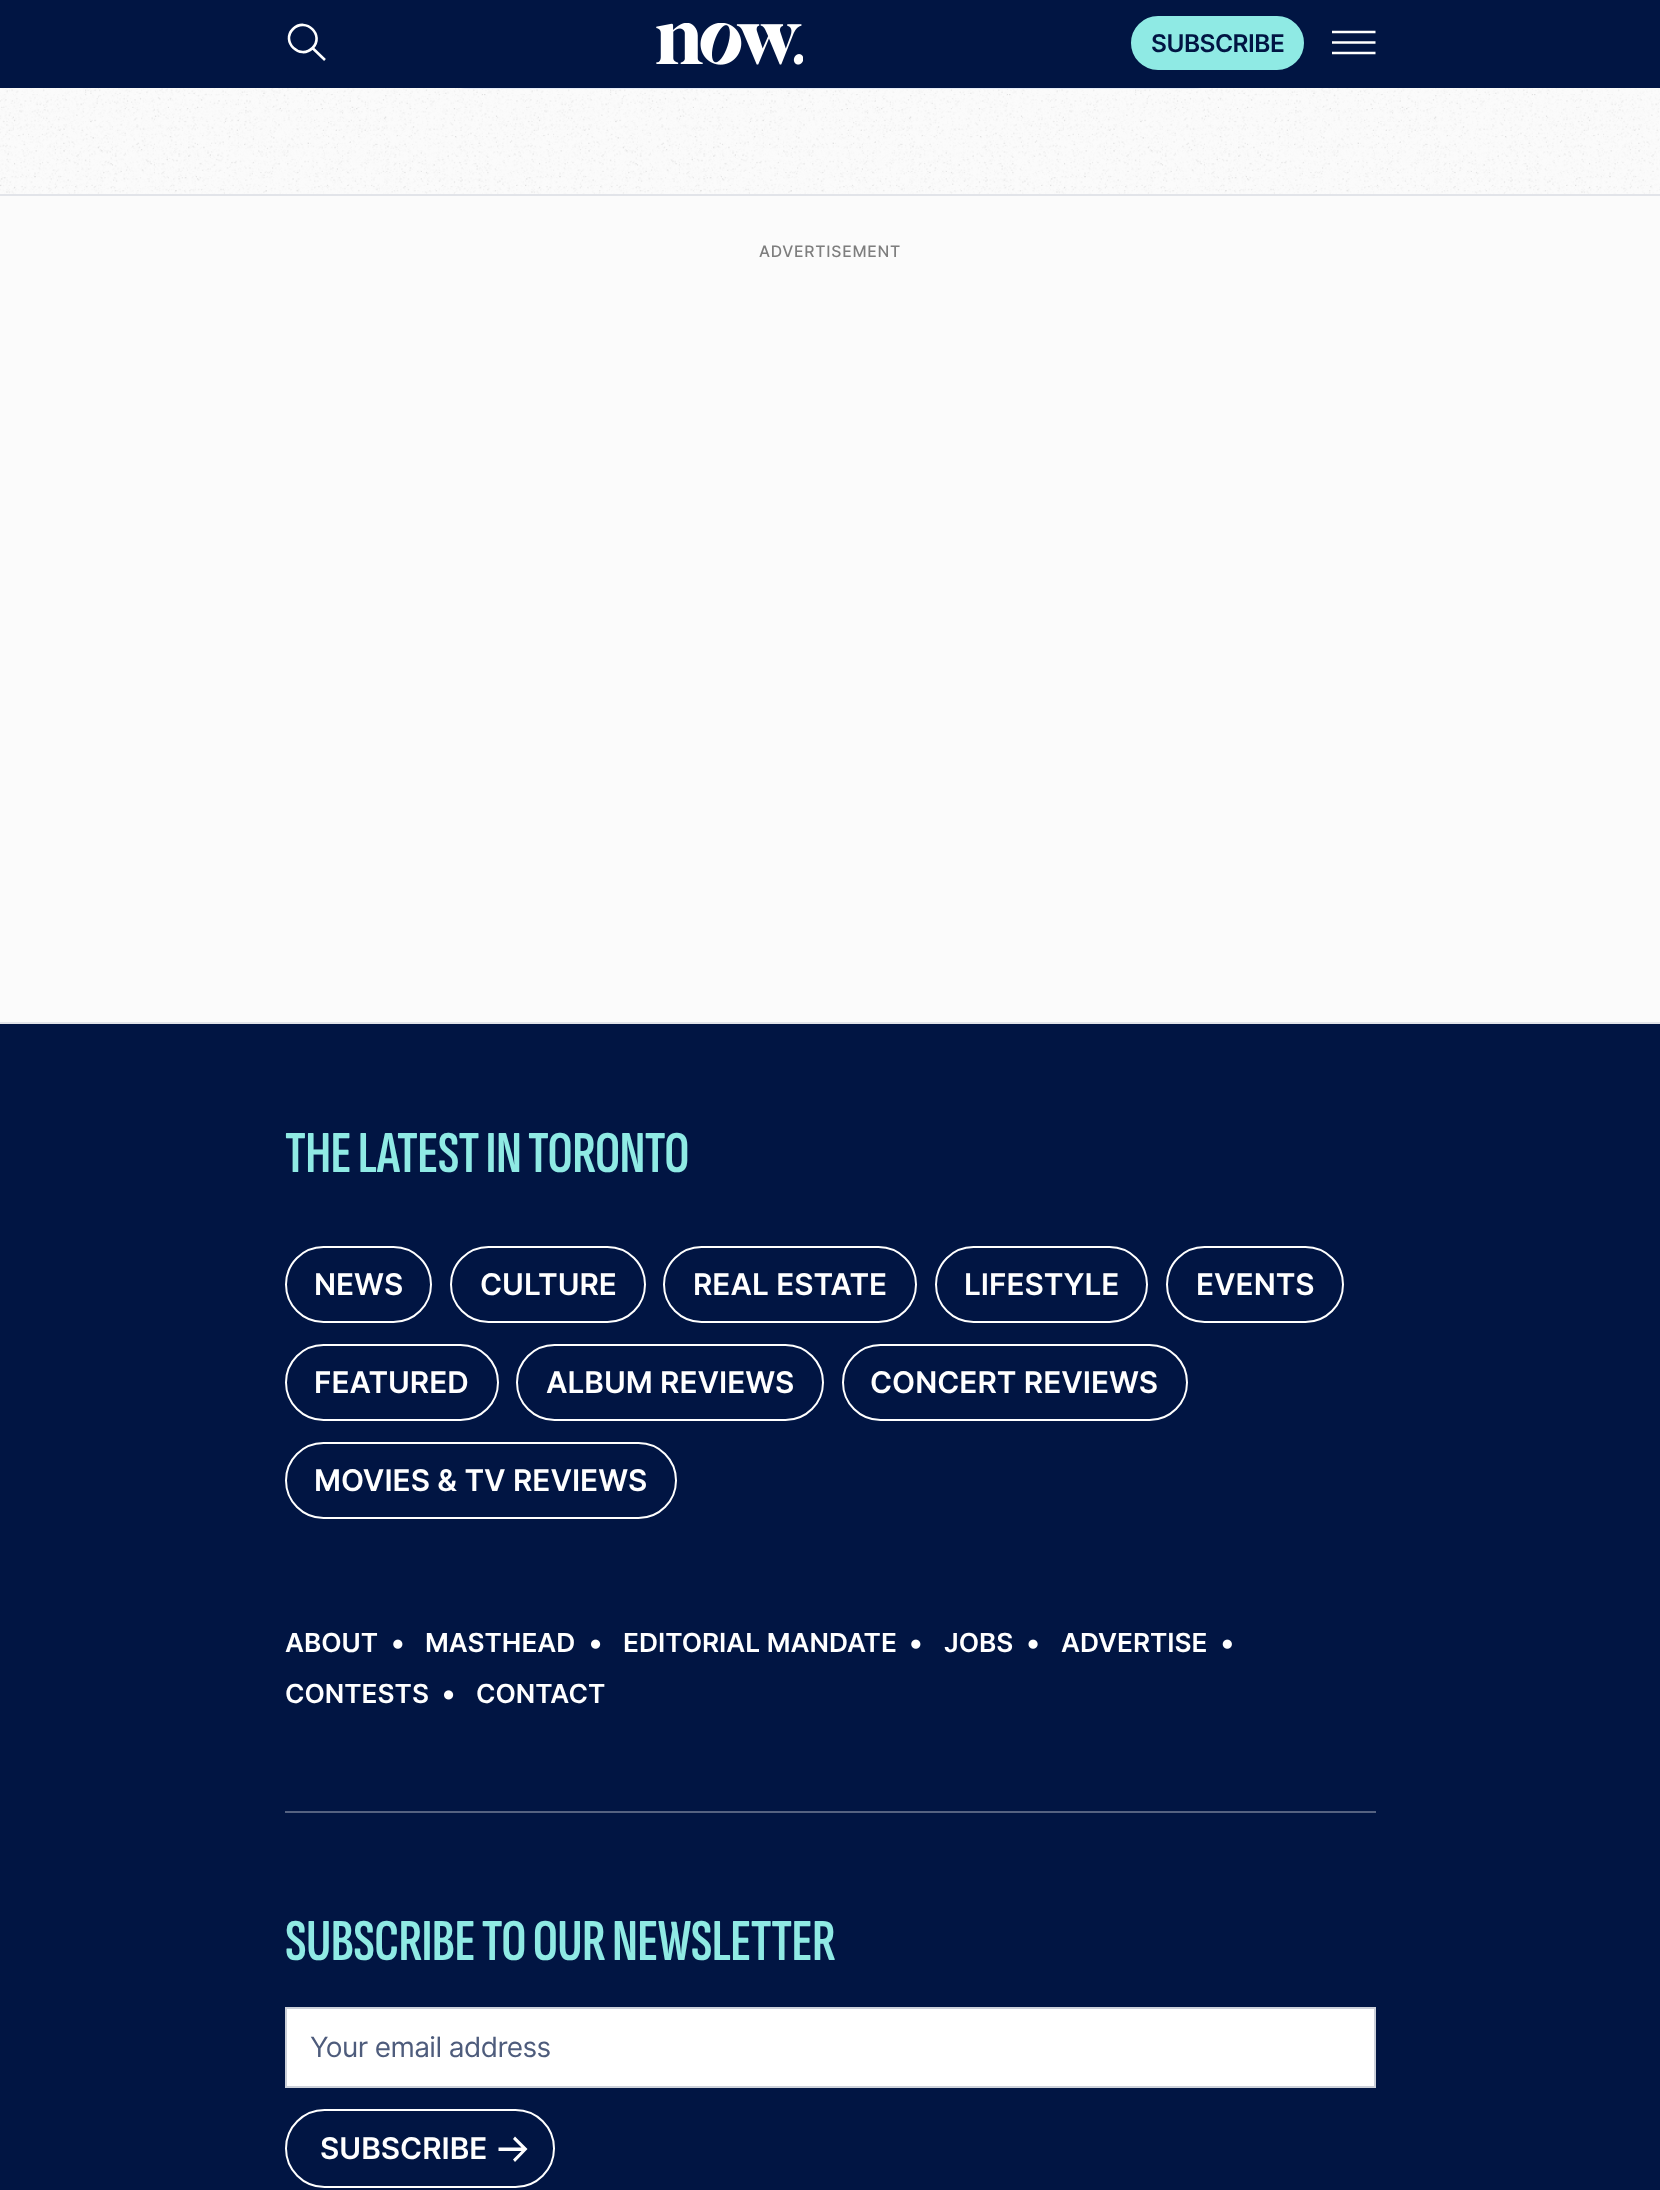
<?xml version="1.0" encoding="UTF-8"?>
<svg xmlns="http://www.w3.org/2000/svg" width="1660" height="2190">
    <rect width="100%" height="100%" fill="#FBFBFB"/>
    <image x="0" y="88" width="1660" height="106" href="img_01.png"/>
    <rect x="412" y="-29" width="838" height="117" rx="58.5" fill="none" stroke="#E6ECF8" stroke-width="2"/>
    <rect x="0" y="0" width="1660" height="88" fill="#011543"/>
    <path d="M 293 29 C 306 16.5 325 35.5 312.5 48 C 300 60.5 280.5 41.5 293 29 Z M 313 48.5 L 325 60" fill="none" stroke="#FFFFFF" stroke-width="2.6"/>
    <image x="656" y="23" width="147" height="42" href="img_02.png"/>
    <rect x="1132" y="17" width="171" height="52" rx="26" fill="#8FEAE4" stroke="#8FEAE4" stroke-width="2"/>
    <text x="1151" y="52" font-family="Inter" font-size="24.5" font-weight="600" letter-spacing="-0.5" fill="#011543">SUBSCRIBE</text>
    <path d="M 1332 32 H 1375.5 M 1332 42.5 H 1375.5 M 1332 53 H 1375.5" fill="none" stroke="#FFFFFF" stroke-width="2.6"/>
    <rect x="0" y="194" width="1660" height="2" fill="#E2E4E9"/>
    <rect x="0" y="1022" width="1660" height="2" fill="#E2E4E9"/>
    <text x="759" y="257" font-family="Inter" font-size="15.75" font-weight="500" letter-spacing="0.75" fill="#7E7E7E">ADVERTISEMENT</text>
    <rect x="0" y="1024" width="1660" height="1166" fill="#011543"/>
    <rect x="285" y="1811" width="1091" height="2" fill="#556281"/>
    <text x="285" y="1172" font-family="Sofia Sans Extra Condensed" font-size="59.5" font-weight="600" letter-spacing="-0.6" fill="#8FEAE4">THE LATEST IN TORONTO</text>
    <rect x="286" y="1247" width="145" height="75" rx="37.5" fill="none" stroke="#FFFFFF" stroke-width="2"/>
    <text x="314" y="1295" font-family="Inter" font-size="29.75" font-weight="600" fill="#FFFFFF">NEWS</text>
    <rect x="451" y="1247" width="194" height="75" rx="37.5" fill="none" stroke="#FFFFFF" stroke-width="2"/>
    <text x="480" y="1295" font-family="Inter" font-size="29.75" font-weight="600" fill="#FFFFFF">CULTURE</text>
    <rect x="664" y="1247" width="252" height="75" rx="37.5" fill="none" stroke="#FFFFFF" stroke-width="2"/>
    <text x="693" y="1295" font-family="Inter" font-size="29.75" font-weight="600" fill="#FFFFFF">REAL ESTATE</text>
    <rect x="936" y="1247" width="211" height="75" rx="37.5" fill="none" stroke="#FFFFFF" stroke-width="2"/>
    <text x="964" y="1295" font-family="Inter" font-size="29.75" font-weight="600" fill="#FFFFFF">LIFESTYLE</text>
    <rect x="1167" y="1247" width="176" height="75" rx="37.5" fill="none" stroke="#FFFFFF" stroke-width="2"/>
    <text x="1196" y="1295" font-family="Inter" font-size="29.75" font-weight="600" fill="#FFFFFF">EVENTS</text>
    <rect x="286" y="1345" width="212" height="75" rx="37.5" fill="none" stroke="#FFFFFF" stroke-width="2"/>
    <text x="314" y="1393" font-family="Inter" font-size="29.75" font-weight="600" fill="#FFFFFF">FEATURED</text>
    <rect x="517" y="1345" width="306" height="75" rx="37.5" fill="none" stroke="#FFFFFF" stroke-width="2"/>
    <text x="546" y="1393" font-family="Inter" font-size="29.75" font-weight="600" fill="#FFFFFF">ALBUM REVIEWS</text>
    <rect x="843" y="1345" width="344" height="75" rx="37.5" fill="none" stroke="#FFFFFF" stroke-width="2"/>
    <text x="870" y="1393" font-family="Inter" font-size="29.75" font-weight="600" fill="#FFFFFF">CONCERT REVIEWS</text>
    <rect x="286" y="1443" width="390" height="75" rx="37.5" fill="none" stroke="#FFFFFF" stroke-width="2"/>
    <text x="314" y="1491" font-family="Inter" font-size="29.75" font-weight="600" fill="#FFFFFF">MOVIES &amp; TV REVIEWS</text>
    <text x="285" y="1652" font-family="Inter" font-size="26.25" font-weight="600" fill="#FFFFFF">ABOUT</text>
    <image x="393" y="1639" width="10" height="10" href="img_03.png"/>
    <text x="425" y="1652" font-family="Inter" font-size="26.25" font-weight="600" fill="#FFFFFF">MASTHEAD</text>
    <image x="591" y="1639" width="10" height="10" href="img_04.png"/>
    <text x="623" y="1652" font-family="Inter" font-size="26.25" font-weight="600" fill="#FFFFFF">EDITORIAL MANDATE</text>
    <image x="911" y="1639" width="10" height="10" href="img_03.png"/>
    <text x="944" y="1652" font-family="Inter" font-size="26.25" font-weight="600" fill="#FFFFFF">JOBS</text>
    <image x="1028" y="1639" width="10" height="10" href="img_05.png"/>
    <text x="1061" y="1652" font-family="Inter" font-size="26.25" font-weight="600" fill="#FFFFFF">ADVERTISE</text>
    <image x="1222" y="1639" width="10" height="10" href="img_06.png"/>
    <text x="285" y="1703" font-family="Inter" font-size="26.25" font-weight="600" fill="#FFFFFF">CONTESTS</text>
    <image x="444" y="1690" width="10" height="10" href="img_07.png"/>
    <text x="476" y="1703" font-family="Inter" font-size="26.25" font-weight="600" fill="#FFFFFF">CONTACT</text>
    <text x="285" y="1960" font-family="Sofia Sans Extra Condensed" font-size="59.5" font-weight="600" letter-spacing="-0.6" fill="#8FEAE4">SUBSCRIBE TO OUR NEWSLETTER</text>
    <rect x="286" y="2008" width="1089" height="79" fill="#FFFFFF" stroke="#CCD0D9" stroke-width="2"/>
    <text x="310" y="2057" font-family="Inter" font-size="28" letter-spacing="-0.6" fill="#4E5C7C">Your email address</text>
    <rect x="286" y="2110" width="268" height="77" rx="38.5" fill="none" stroke="#FFFFFF" stroke-width="2"/>
    <text x="320" y="2159" font-family="Inter" font-size="29.75" font-weight="600" fill="#FFFFFF">SUBSCRIBE</text>
    <path d="M 515 2162 L 513 2159.5 L 521.5 2151 H 498.5 V 2147.5 H 521.5 L 513 2139 L 515 2136.5 L 527.5 2149 Z" fill="#FFFFFF"/>
</svg>
